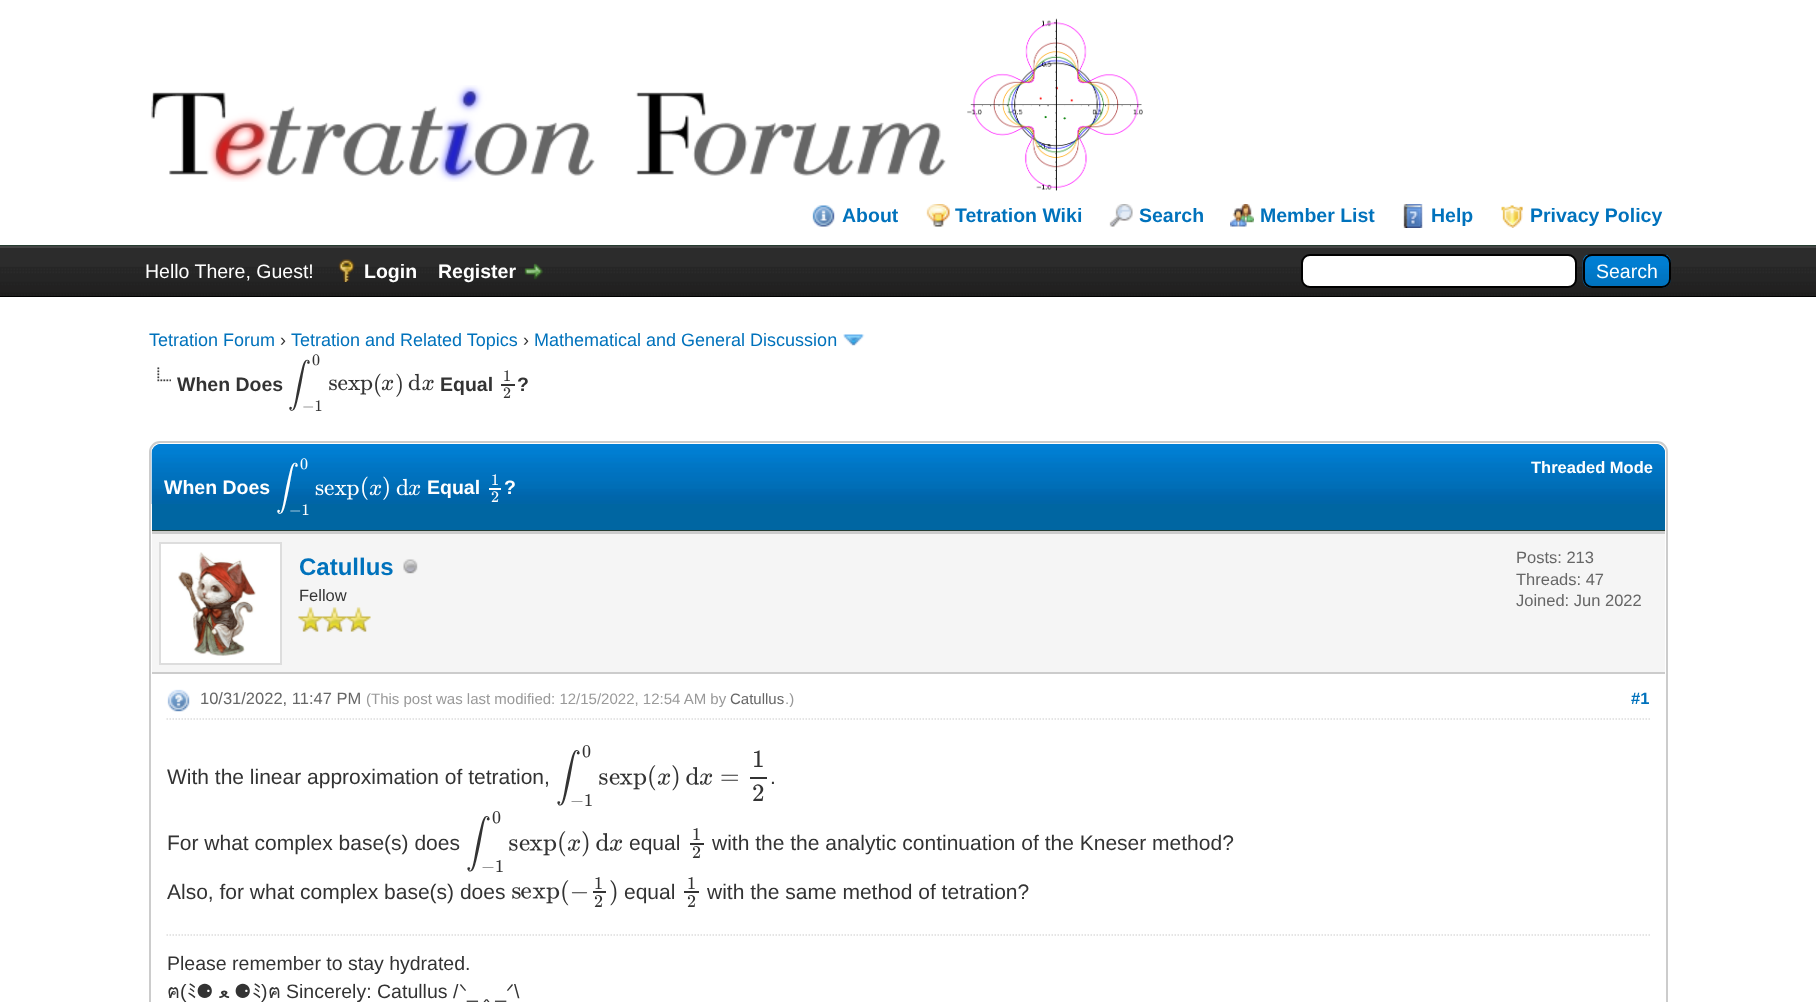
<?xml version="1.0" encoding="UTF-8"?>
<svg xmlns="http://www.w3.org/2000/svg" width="1816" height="1002">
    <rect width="100%" height="100%" fill="#FFFFFF"/>
    <rect x="0" y="245" width="1816" height="1" fill="#263C30"/>
    <image x="151" y="85" width="795" height="97" href="img_01.png"/>
    <image x="967" y="18" width="176" height="173" href="img_02.png"/>
    <image x="812" y="205" width="23" height="22" href="img_03.png"/>
    <text x="842" y="222" font-family="Liberation Sans" font-size="19.5" font-weight="700" fill="#0072BC">About</text>
    <image x="926" y="204" width="24" height="23" href="img_04.png"/>
    <text x="955" y="222" font-family="Liberation Sans" font-size="19.5" font-weight="700" fill="#0072BC">Tetration Wiki</text>
    <image x="1109" y="204" width="24" height="23" href="img_05.png"/>
    <text x="1139" y="222" font-family="Liberation Sans" font-size="19.5" font-weight="700" fill="#0072BC">Search</text>
    <image x="1230" y="204" width="24" height="23" href="img_06.png"/>
    <text x="1260" y="222" font-family="Liberation Sans" font-size="19.5" font-weight="700" fill="#0072BC">Member List</text>
    <image x="1403" y="204" width="20" height="24" href="img_07.png"/>
    <text x="1431" y="222" font-family="Liberation Sans" font-size="19.5" font-weight="700" fill="#0072BC">Help</text>
    <image x="1501" y="205" width="22" height="23" href="img_08.png"/>
    <text x="1530" y="222" font-family="Liberation Sans" font-size="19.5" font-weight="700" fill="#0072BC">Privacy Policy</text>
    <image x="0" y="248" width="1816" height="48" href="img_09.png"/>
    <rect x="0" y="246" width="1816" height="2" fill="#444444"/>
    <rect x="0" y="296" width="1816" height="1" fill="#000000"/>
    <text x="145" y="278" font-family="Liberation Sans" font-size="19.5" fill="#FFFFFF">Hello There, Guest!</text>
    <image x="338" y="259" width="17" height="23" href="img_10.png"/>
    <text x="364" y="278" font-family="Liberation Sans" font-size="19.5" font-weight="700" fill="#FFFFFF">Login</text>
    <text x="438" y="278" font-family="Liberation Sans" font-size="19.5" font-weight="700" fill="#FFFFFF">Register</text>
    <image x="524" y="263" width="20" height="17" href="img_11.png"/>
    <rect x="1302" y="255" width="274" height="32" rx="8" fill="#FFFFFF" stroke="#000000" stroke-width="2"/>
    <image x="1582" y="255" width="89" height="33" href="img_12.png"/>
    <rect x="1584" y="255" width="86" height="32" rx="8" fill="none" stroke="#000000" stroke-width="2"/>
    <text x="1596" y="278" font-family="Liberation Sans" font-size="19.5" fill="#FFFFFF">Search</text>
    <text x="149" y="346" font-family="Liberation Sans" font-size="18" fill="#0072BC">Tetration Forum</text>
    <text x="280" y="346" font-family="Liberation Sans" font-size="18" fill="#333333">›</text>
    <text x="291" y="346" font-family="Liberation Sans" font-size="18" fill="#0072BC">Tetration and Related Topics</text>
    <text x="523" y="346" font-family="Liberation Sans" font-size="18" fill="#333333">›</text>
    <text x="534" y="346" font-family="Liberation Sans" font-size="18" fill="#0072BC">Mathematical and General Discussion</text>
    <image x="843" y="334" width="22" height="12" href="img_13.png"/>
    <image x="157" y="367" width="14" height="15" href="img_14.png"/>
    <text x="177" y="391" font-family="Liberation Sans" font-size="19.5" font-weight="700" fill="#333333">When Does</text>
    <text x="288" y="391" font-family="'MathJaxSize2'" font-size="23" fill="#333333">∫</text>
    <text x="312" y="365" font-family="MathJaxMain" font-size="16" fill="#333333">0</text>
    <text x="302" y="411" font-family="MathJaxMain" font-size="16" fill="#333333">−1</text>
    <image x="329" y="379" width="8" height="12" href="img_15.png"/>
    <image x="338" y="379" width="10" height="12" href="img_16.png"/>
    <image x="348" y="379" width="13" height="11" href="img_17.png"/>
    <image x="360" y="379" width="13" height="16" href="img_18.png"/>
    <text x="373" y="391" font-family="MathJaxMain" font-size="23" fill="#333333">(</text>
    <image x="381" y="379" width="13" height="12" href="img_19.png"/>
    <text x="395" y="391" font-family="MathJaxMain" font-size="23" fill="#333333">)</text>
    <image x="408" y="373" width="13" height="18" href="img_20.png"/>
    <image x="422" y="379" width="12" height="12" href="img_21.png"/>
    <text x="440" y="391" font-family="Liberation Sans" font-size="19.5" font-weight="700" fill="#333333">Equal</text>
    <text x="503" y="381" font-family="MathJaxMain" font-size="16" fill="#333333">1</text>
    <rect x="501" y="384" width="14" height="2" fill="#333333"/>
    <text x="503" y="398" font-family="MathJaxMain" font-size="16" fill="#333333">2</text>
    <text x="517" y="391" font-family="Liberation Sans" font-size="19.5" font-weight="700" fill="#333333">?</text>
    <rect x="150" y="442" width="1517" height="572" rx="10" fill="none" stroke="#CCCCCC" stroke-width="2"/>
    <path d="M 161 444 H 1656 C 1661 444 1665 448 1665 453 V 531 H 152 V 453 C 152 448 156 444 161 444 Z" fill="#0066A2"/>
    <image x="151" y="444" width="1514" height="60" href="img_22.png"/>
    <rect x="152" y="530" width="1513" height="1" fill="#263C30"/>
    <text x="164" y="494" font-family="Liberation Sans" font-size="19.5" font-weight="700" fill="#FFFFFF">When Does</text>
    <text x="300" y="469" font-family="MathJaxMain" font-size="16" fill="#FFFFFF">0</text>
    <text x="289" y="515" font-family="MathJaxMain" font-size="16" fill="#FFFFFF">−1</text>
    <text x="276" y="494" font-family="'MathJaxSize2'" font-size="23" fill="#FFFFFF">∫</text>
    <image x="315" y="484" width="9" height="12" href="img_23.png"/>
    <image x="324" y="484" width="10" height="12" href="img_24.png"/>
    <image x="334" y="484" width="13" height="11" href="img_25.png"/>
    <image x="346" y="484" width="13" height="16" href="img_26.png"/>
    <text x="360" y="494" font-family="MathJaxMain" font-size="23" fill="#FFFFFF">(</text>
    <image x="369" y="484" width="13" height="12" href="img_27.png"/>
    <text x="382" y="494" font-family="MathJaxMain" font-size="23" fill="#FFFFFF">)</text>
    <image x="396" y="478" width="13" height="18" href="img_28.png"/>
    <image x="408" y="484" width="13" height="12" href="img_29.png"/>
    <text x="427" y="494" font-family="Liberation Sans" font-size="19.5" font-weight="700" fill="#FFFFFF">Equal</text>
    <text x="491" y="485" font-family="MathJaxMain" font-size="16" fill="#FFFFFF">1</text>
    <rect x="489" y="488" width="12" height="2" fill="#FFFFFF"/>
    <text x="491" y="502" font-family="MathJaxMain" font-size="16" fill="#FFFFFF">2</text>
    <text x="504" y="494" font-family="Liberation Sans" font-size="19.5" font-weight="700" fill="#FFFFFF">?</text>
    <text x="1531" y="473" font-family="Liberation Sans" font-size="16.5" font-weight="700" fill="#FFFFFF">Threaded Mode</text>
    <rect x="152" y="534" width="1513" height="138" fill="#F5F5F5"/>
    <rect x="152" y="531" width="1513" height="3" fill="#CCCCCC"/>
    <rect x="152" y="672" width="1513" height="2" fill="#CCCCCC"/>
    <rect x="160" y="543" width="121" height="121" fill="#FFFFFF" stroke="#DDDDDD" stroke-width="2"/>
    <image x="178" y="552" width="78" height="104" href="img_30.png"/>
    <text x="299" y="575" font-family="Liberation Sans" font-size="24" font-weight="700" fill="#0072BC">Catullus</text>
    <image x="403" y="559" width="15" height="15" href="img_31.png"/>
    <text x="299" y="601" font-family="Liberation Sans" font-size="16.5" fill="#333333">Fellow</text>
    <image x="298" y="607" width="25" height="25" href="img_32.png"/>
    <image x="322" y="607" width="25" height="25" href="img_33.png"/>
    <image x="346" y="607" width="25" height="25" href="img_33.png"/>
    <text font-family="Liberation Sans" font-size="16.5" fill="#666666">
        <tspan x="1516" y="563">Posts: 213</tspan>
        <tspan x="1516" y="585">Threads: 47</tspan>
        <tspan x="1516" y="606">Joined: Jun 2022</tspan>
    </text>
    <path d="M 166.5 719 H 1650" fill="none" stroke="#DDDDDD" stroke-width="1.5" stroke-dasharray="1.5 1.5"/>
    <image x="167" y="689" width="23" height="23" href="img_34.png"/>
    <text x="200" y="704" font-family="Liberation Sans" font-size="16.5" fill="#666666">10/31/2022, 11:47 PM</text>
    <text x="366" y="704" font-family="Liberation Sans" font-size="15" fill="#999999">(This post was last modified: 12/15/2022, 12:54 AM by</text>
    <text x="730" y="704" font-family="Liberation Sans" font-size="15" fill="#666666">Catullus</text>
    <text x="785" y="704" font-family="Liberation Sans" font-size="15" fill="#999999">.)</text>
    <text x="1631" y="704" font-family="Liberation Sans" font-size="16.5" font-weight="700" fill="#0072BC">#1</text>
    <text x="167" y="784" font-family="Liberation Sans" font-size="21" fill="#333333">With the linear approximation of tetration,</text>
    <text x="556" y="784" font-family="'MathJaxSize2'" font-size="25" fill="#333333">∫</text>
    <text x="582" y="757" font-family="MathJaxMain" font-size="18" fill="#333333">0</text>
    <text x="570" y="806" font-family="MathJaxMain" font-size="18" fill="#333333">−1</text>
    <image x="599" y="773" width="9" height="12" href="img_35.png"/>
    <image x="609" y="773" width="11" height="12" href="img_36.png"/>
    <image x="619" y="773" width="14" height="12" href="img_37.png"/>
    <image x="633" y="773" width="14" height="17" href="img_38.png"/>
    <text x="647" y="784" font-family="MathJaxMain" font-size="25" fill="#333333">(</text>
    <image x="657" y="773" width="14" height="12" href="img_39.png"/>
    <text x="671" y="784" font-family="MathJaxMain" font-size="25" fill="#333333">)</text>
    <image x="686" y="767" width="13" height="18" href="img_40.png"/>
    <image x="699" y="773" width="14" height="12" href="img_39.png"/>
    <text x="720" y="784" font-family="MathJaxMain" font-size="25" fill="#333333">=</text>
    <text x="752" y="767" font-family="MathJaxMain" font-size="25" fill="#333333">1</text>
    <rect x="750" y="777" width="17" height="2" fill="#333333"/>
    <text x="752" y="801" font-family="MathJaxMain" font-size="25" fill="#333333">2</text>
    <text x="770" y="784" font-family="Liberation Sans" font-size="21" fill="#333333">.</text>
    <text x="167" y="850" font-family="Liberation Sans" font-size="21" fill="#333333">For what complex base(s) does</text>
    <text x="466" y="850" font-family="'MathJaxSize2'" font-size="25" fill="#333333">∫</text>
    <text x="492" y="823" font-family="MathJaxMain" font-size="18" fill="#333333">0</text>
    <text x="481" y="872" font-family="MathJaxMain" font-size="18" fill="#333333">−1</text>
    <image x="509" y="839" width="9" height="12" href="img_35.png"/>
    <image x="519" y="839" width="11" height="12" href="img_36.png"/>
    <image x="529" y="839" width="14" height="12" href="img_37.png"/>
    <image x="543" y="839" width="14" height="17" href="img_38.png"/>
    <text x="557" y="850" font-family="MathJaxMain" font-size="25" fill="#333333">(</text>
    <image x="567" y="839" width="14" height="12" href="img_39.png"/>
    <text x="581" y="850" font-family="MathJaxMain" font-size="25" fill="#333333">)</text>
    <image x="596" y="833" width="13" height="18" href="img_40.png"/>
    <image x="609" y="839" width="14" height="12" href="img_39.png"/>
    <text x="629" y="850" font-family="Liberation Sans" font-size="21" fill="#333333">equal</text>
    <text x="692" y="840" font-family="MathJaxMain" font-size="18" fill="#333333">1</text>
    <rect x="690" y="843" width="14" height="2" fill="#333333"/>
    <text x="692" y="858" font-family="MathJaxMain" font-size="18" fill="#333333">2</text>
    <text x="712" y="850" font-family="Liberation Sans" font-size="21" fill="#333333">with the the analytic continuation of the Kneser method?</text>
    <text x="167" y="899" font-family="Liberation Sans" font-size="21" fill="#333333">Also, for what complex base(s) does</text>
    <image x="512" y="887" width="9" height="12" href="img_35.png"/>
    <image x="521" y="887" width="10" height="12" href="img_41.png"/>
    <image x="532" y="887" width="14" height="12" href="img_42.png"/>
    <image x="546" y="887" width="14" height="17" href="img_38.png"/>
    <text x="560" y="899" font-family="MathJaxMain" font-size="25" fill="#333333">(−</text>
    <text x="594" y="889" font-family="MathJaxMain" font-size="18" fill="#333333">1</text>
    <rect x="593" y="891" width="13" height="2" fill="#333333"/>
    <text x="594" y="907" font-family="MathJaxMain" font-size="18" fill="#333333">2</text>
    <text x="609" y="899" font-family="MathJaxMain" font-size="25" fill="#333333">)</text>
    <text x="624" y="899" font-family="Liberation Sans" font-size="21" fill="#333333">equal</text>
    <text x="687" y="889" font-family="MathJaxMain" font-size="18" fill="#333333">1</text>
    <rect x="684" y="891" width="15" height="2" fill="#333333"/>
    <text x="687" y="907" font-family="MathJaxMain" font-size="18" fill="#333333">2</text>
    <text x="707" y="899" font-family="Liberation Sans" font-size="21" fill="#333333">with the same method of tetration?</text>
    <path d="M 166.5 935 H 1650" fill="none" stroke="#DDDDDD" stroke-width="1.5" stroke-dasharray="1.5 1.5"/>
    <text x="167" y="970" font-family="Liberation Sans" font-size="19.5" fill="#333333">Please remember to stay hydrated.</text>
    <text x="167" y="998" font-family="Loma" font-size="19.5" fill="#333333">ฅ</text>
    <text x="180" y="998" font-family="Liberation Sans" font-size="19.5" fill="#333333">(</text>
    <text x="187" y="998" font-family="IPAGothic" font-size="19.5" fill="#333333">ﾐ</text>
    <text x="196" y="998" font-family="DejaVu Sans" font-size="19.5" fill="#333333">⚈</text>
    <text x="229" y="998" font-family="DejaVu Sans" font-size="19.5" direction="rtl" fill="#333333">ﻌ</text>
    <text x="234" y="998" font-family="DejaVu Sans" font-size="19.5" fill="#333333">⚈</text>
    <text x="252" y="998" font-family="IPAGothic" font-size="19.5" fill="#333333">ﾐ</text>
    <text x="261" y="998" font-family="Liberation Sans" font-size="19.5" fill="#333333">)</text>
    <text x="268" y="998" font-family="Loma" font-size="19.5" fill="#333333">ฅ</text>
    <text x="286" y="998" font-family="Liberation Sans" font-size="19.5" fill="#333333">Sincerely: Catullus /</text>
    <text x="459" y="998" font-family="DejaVu Sans" font-size="19.5" fill="#333333">ᐠ</text>
    <text x="506" y="998" font-family="DejaVu Sans" font-size="19.5" fill="#333333">ᐟ</text>
    <text x="514" y="998" font-family="Liberation Sans" font-size="19.5" fill="#333333">\</text>
    <text x="467" y="998" font-family="Liberation Sans" font-size="19.5" fill="#333333">_ ꞈ _</text>
</svg>
